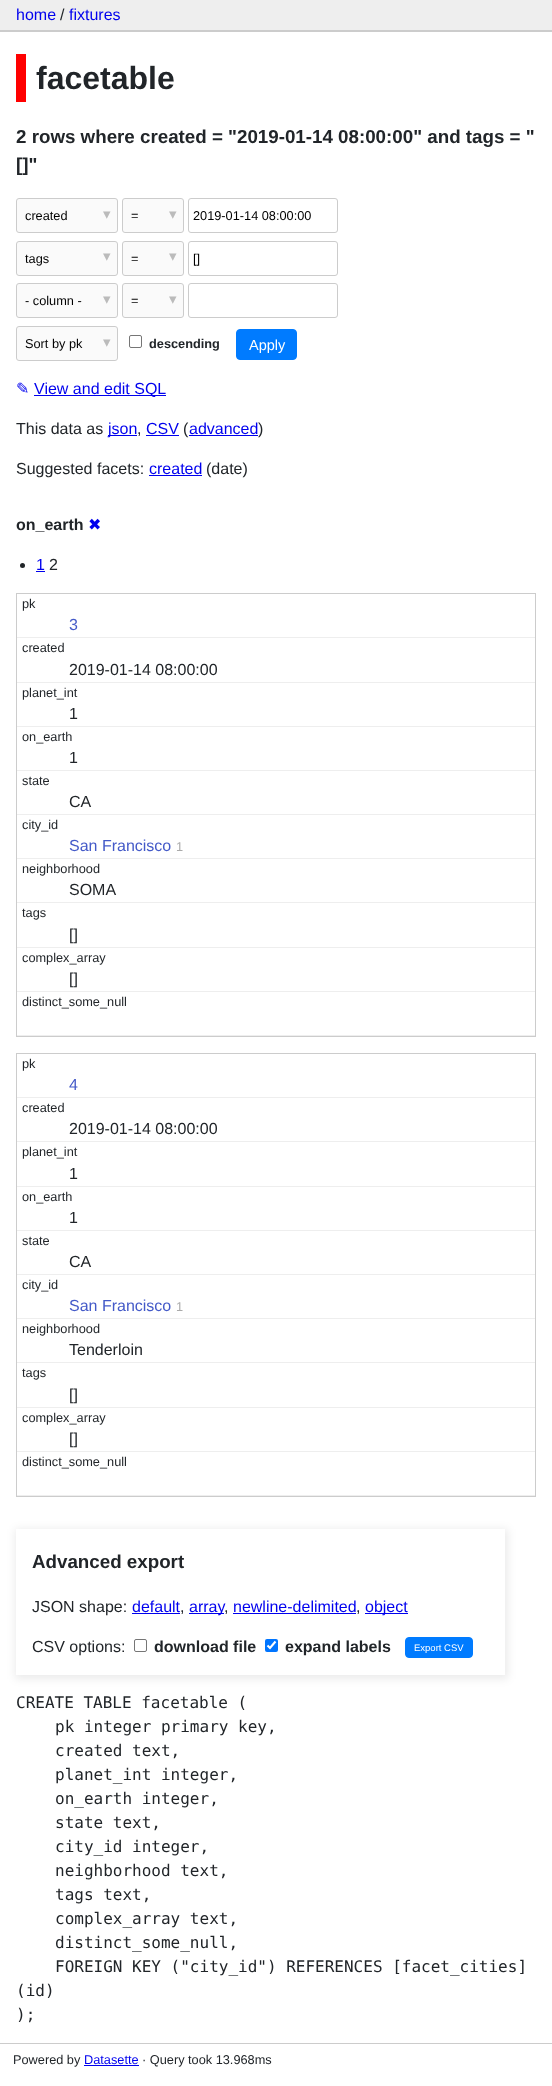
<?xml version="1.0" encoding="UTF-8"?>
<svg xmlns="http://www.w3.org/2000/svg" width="552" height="2086">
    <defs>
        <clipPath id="clip1"><path d="M 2 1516 H 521 V 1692 H 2 Z M 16 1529 H 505 V 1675 H 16 Z" clip-rule="evenodd"/></clipPath>
        <filter id="blur1" x="-50%" y="-200%" width="200%" height="500%"><feGaussianBlur stdDeviation="4"/></filter>
    </defs>
    <rect width="100%" height="100%" fill="#FFFFFF"/>
    <rect x="0" y="0" width="552" height="30" fill="#EEEEEE"/>
    <rect x="0" y="30" width="552" height="2" fill="#CCCCCC"/>
    <text x="16" y="20" font-family="Liberation Sans" font-size="16" fill="#0000EE">home</text>
    <text x="60" y="20" font-family="Liberation Sans" font-size="16" fill="#212529">/</text>
    <text x="69" y="20" font-family="Liberation Sans" font-size="16" fill="#0000EE">fixtures</text>
    <rect x="16" y="54" width="10" height="48" fill="#FF0000"/>
    <text x="36" y="89" font-family="Liberation Sans" font-size="32" font-weight="700" fill="#212529">facetable</text>
    <text font-family="Liberation Sans" font-size="18.75" font-weight="700" fill="#212529">
        <tspan x="16" y="143">2 rows where created = "2019-01-14 08:00:00" and tags = "</tspan>
        <tspan x="16" y="171">[]"</tspan>
    </text>
    <rect x="16.5" y="198.5" width="101" height="34" rx="2.5" fill="#FAFAFA" stroke="#CCCCCC"/>
    <text x="25" y="220" font-family="Liberation Sans" font-size="12.75" fill="#000000">created</text>
    <text x="103" y="219" font-family="DejaVu Sans" font-size="15" fill="#BBBBBB">▾</text>
    <rect x="122.5" y="198.5" width="61" height="34" rx="2.5" fill="#FAFAFA" stroke="#CCCCCC"/>
    <text x="131" y="220" font-family="Liberation Sans" font-size="12.75" fill="#000000">=</text>
    <text x="169" y="219" font-family="DejaVu Sans" font-size="15" fill="#BBBBBB">▾</text>
    <rect x="188.5" y="198.5" width="149" height="34" rx="2.5" fill="none" stroke="#CCCCCC"/>
    <text x="193" y="220" font-family="Liberation Sans" font-size="12.75" fill="#000000">2019-01-14 08:00:00</text>
    <rect x="16.5" y="241.5" width="101" height="34" rx="2.5" fill="#FAFAFA" stroke="#CCCCCC"/>
    <text x="25" y="263" font-family="Liberation Sans" font-size="12.75" fill="#000000">tags</text>
    <text x="103" y="261" font-family="DejaVu Sans" font-size="15" fill="#BBBBBB">▾</text>
    <rect x="122.5" y="241.5" width="61" height="34" rx="2.5" fill="#FAFAFA" stroke="#CCCCCC"/>
    <text x="131" y="263" font-family="Liberation Sans" font-size="12.75" fill="#000000">=</text>
    <text x="169" y="261" font-family="DejaVu Sans" font-size="15" fill="#BBBBBB">▾</text>
    <rect x="188.5" y="241.5" width="149" height="34" rx="2.5" fill="none" stroke="#CCCCCC"/>
    <text x="193" y="263" font-family="Liberation Sans" font-size="12.75" fill="#000000">[]</text>
    <rect x="16.5" y="283.5" width="101" height="34" rx="2.5" fill="#FAFAFA" stroke="#CCCCCC"/>
    <text x="25" y="305" font-family="Liberation Sans" font-size="12.75" fill="#000000">- column -</text>
    <text x="103" y="304" font-family="DejaVu Sans" font-size="15" fill="#BBBBBB">▾</text>
    <rect x="122.5" y="283.5" width="61" height="34" rx="2.5" fill="#FAFAFA" stroke="#CCCCCC"/>
    <text x="131" y="305" font-family="Liberation Sans" font-size="12.75" fill="#000000">=</text>
    <text x="169" y="304" font-family="DejaVu Sans" font-size="15" fill="#BBBBBB">▾</text>
    <rect x="188.5" y="283.5" width="149" height="34" rx="2.5" fill="none" stroke="#CCCCCC"/>
    <rect x="16.5" y="326.5" width="101" height="34" rx="2.5" fill="#FAFAFA" stroke="#CCCCCC"/>
    <text x="25" y="348" font-family="Liberation Sans" font-size="12.75" fill="#000000">Sort by pk</text>
    <text x="103" y="347" font-family="DejaVu Sans" font-size="15" fill="#BBBBBB">▾</text>
    <rect x="129.5" y="335.5" width="12" height="12" rx="1.5" fill="none" stroke="#767676"/>
    <text x="149" y="348" font-family="Liberation Sans" font-size="12.75" font-weight="700" fill="#212529">descending</text>
    <rect x="236.5" y="329.5" width="60" height="30" rx="3.5" fill="#007BFF" stroke="#007BFF"/>
    <text x="249" y="350" font-family="Liberation Sans" font-size="14.5" fill="#FFFFFF">Apply</text>
    <text x="16" y="394" font-family="DejaVu Sans" font-size="16" fill="#0000EE">✎</text>
    <rect x="34" y="395" width="132" height="1" fill="#0000EE"/>
    <text x="34" y="394" font-family="Liberation Sans" font-size="16" fill="#0000EE">View and edit SQL</text>
    <text x="16" y="434" font-family="Liberation Sans" font-size="16" fill="#212529">This data as</text>
    <rect x="108" y="435" width="29" height="1" fill="#0000EE"/>
    <text x="108" y="434" font-family="Liberation Sans" font-size="16" fill="#0000EE">json</text>
    <text x="137" y="434" font-family="Liberation Sans" font-size="16" fill="#212529">,</text>
    <text x="146" y="434" font-family="Liberation Sans" font-size="16" fill="#0000EE">CSV</text>
    <rect x="146" y="435" width="33" height="1" fill="#0000EE"/>
    <text x="183" y="434" font-family="Liberation Sans" font-size="16" fill="#212529">(</text>
    <text x="189" y="434" font-family="Liberation Sans" font-size="16" fill="#0000EE">advanced</text>
    <rect x="189" y="435" width="69" height="1" fill="#0000EE"/>
    <text x="258" y="434" font-family="Liberation Sans" font-size="16" fill="#212529">)</text>
    <text x="16" y="474" font-family="Liberation Sans" font-size="16" fill="#212529">Suggested facets:</text>
    <text x="149" y="474" font-family="Liberation Sans" font-size="16" fill="#0000EE">created</text>
    <rect x="149" y="475" width="53" height="1" fill="#0000EE"/>
    <text x="206" y="474" font-family="Liberation Sans" font-size="16" fill="#212529">(date)</text>
    <text x="16" y="530" font-family="Liberation Sans" font-size="16" font-weight="700" fill="#212529">on_earth</text>
    <text x="88" y="530" font-family="DejaVu Sans" font-size="16" fill="#0000EE">✖</text>
    <circle cx="22.5" cy="565.5" r="2.5" fill="#212529"/>
    <text x="36" y="570" font-family="Liberation Sans" font-size="16" fill="#0000EE">1</text>
    <rect x="36" y="571" width="9" height="1" fill="#0000EE"/>
    <text x="49" y="570" font-family="Liberation Sans" font-size="16" fill="#212529">2</text>
    <rect x="16.5" y="593.5" width="519" height="443" fill="none" stroke="#CCCCCC"/>
    <rect x="17" y="637" width="518" height="1" fill="#EEEEEE"/>
    <text x="22" y="608" font-family="Liberation Sans" font-size="12.75" fill="#212529">pk</text>
    <text x="69" y="630" font-family="Liberation Sans" font-size="16" fill="#445AC8">3</text>
    <rect x="17" y="682" width="518" height="1" fill="#EEEEEE"/>
    <text x="22" y="652" font-family="Liberation Sans" font-size="12.75" fill="#212529">created</text>
    <text x="69" y="675" font-family="Liberation Sans" font-size="16" fill="#212529">2019-01-14 08:00:00</text>
    <rect x="17" y="726" width="518" height="1" fill="#EEEEEE"/>
    <text x="22" y="697" font-family="Liberation Sans" font-size="12.75" fill="#212529">planet_int</text>
    <text x="69" y="719" font-family="Liberation Sans" font-size="16" fill="#212529">1</text>
    <rect x="17" y="770" width="518" height="1" fill="#EEEEEE"/>
    <text x="22" y="741" font-family="Liberation Sans" font-size="12.75" fill="#212529">on_earth</text>
    <text x="69" y="763" font-family="Liberation Sans" font-size="16" fill="#212529">1</text>
    <rect x="17" y="814" width="518" height="1" fill="#EEEEEE"/>
    <text x="22" y="785" font-family="Liberation Sans" font-size="12.75" fill="#212529">state</text>
    <text x="69" y="807" font-family="Liberation Sans" font-size="16" fill="#212529">CA</text>
    <rect x="17" y="858" width="518" height="1" fill="#EEEEEE"/>
    <text x="22" y="829" font-family="Liberation Sans" font-size="12.75" fill="#212529">city_id</text>
    <text x="69" y="851" font-family="Liberation Sans" font-size="16" fill="#445AC8">San Francisco</text>
    <text x="176" y="851" font-family="Liberation Sans" font-size="12.75" fill="#AAAAAA">1</text>
    <rect x="17" y="902" width="518" height="1" fill="#EEEEEE"/>
    <text x="22" y="873" font-family="Liberation Sans" font-size="12.75" fill="#212529">neighborhood</text>
    <text x="69" y="895" font-family="Liberation Sans" font-size="16" fill="#212529">SOMA</text>
    <rect x="17" y="947" width="518" height="1" fill="#EEEEEE"/>
    <text x="22" y="917" font-family="Liberation Sans" font-size="12.75" fill="#212529">tags</text>
    <text x="69" y="940" font-family="Liberation Sans" font-size="16" fill="#212529">[]</text>
    <rect x="17" y="991" width="518" height="1" fill="#EEEEEE"/>
    <text x="22" y="962" font-family="Liberation Sans" font-size="12.75" fill="#212529">complex_array</text>
    <text x="69" y="984" font-family="Liberation Sans" font-size="16" fill="#212529">[]</text>
    <rect x="17" y="1035" width="518" height="1" fill="#EEEEEE"/>
    <text x="22" y="1006" font-family="Liberation Sans" font-size="12.75" fill="#212529">distinct_some_null</text>
    <rect x="16.5" y="1053.5" width="519" height="443" fill="none" stroke="#CCCCCC"/>
    <rect x="17" y="1097" width="518" height="1" fill="#EEEEEE"/>
    <text x="22" y="1068" font-family="Liberation Sans" font-size="12.75" fill="#212529">pk</text>
    <text x="69" y="1090" font-family="Liberation Sans" font-size="16" fill="#445AC8">4</text>
    <rect x="17" y="1141" width="518" height="1" fill="#EEEEEE"/>
    <text x="22" y="1112" font-family="Liberation Sans" font-size="12.75" fill="#212529">created</text>
    <text x="69" y="1134" font-family="Liberation Sans" font-size="16" fill="#212529">2019-01-14 08:00:00</text>
    <rect x="17" y="1186" width="518" height="1" fill="#EEEEEE"/>
    <text x="22" y="1156" font-family="Liberation Sans" font-size="12.75" fill="#212529">planet_int</text>
    <text x="69" y="1179" font-family="Liberation Sans" font-size="16" fill="#212529">1</text>
    <rect x="17" y="1230" width="518" height="1" fill="#EEEEEE"/>
    <text x="22" y="1201" font-family="Liberation Sans" font-size="12.75" fill="#212529">on_earth</text>
    <text x="69" y="1223" font-family="Liberation Sans" font-size="16" fill="#212529">1</text>
    <rect x="17" y="1274" width="518" height="1" fill="#EEEEEE"/>
    <text x="22" y="1245" font-family="Liberation Sans" font-size="12.75" fill="#212529">state</text>
    <text x="69" y="1267" font-family="Liberation Sans" font-size="16" fill="#212529">CA</text>
    <rect x="17" y="1318" width="518" height="1" fill="#EEEEEE"/>
    <text x="22" y="1289" font-family="Liberation Sans" font-size="12.75" fill="#212529">city_id</text>
    <text x="69" y="1311" font-family="Liberation Sans" font-size="16" fill="#445AC8">San Francisco</text>
    <text x="176" y="1311" font-family="Liberation Sans" font-size="12.75" fill="#AAAAAA">1</text>
    <rect x="17" y="1362" width="518" height="1" fill="#EEEEEE"/>
    <text x="22" y="1333" font-family="Liberation Sans" font-size="12.75" fill="#212529">neighborhood</text>
    <text x="69" y="1355" font-family="Liberation Sans" font-size="16" fill="#212529">Tenderloin</text>
    <rect x="17" y="1407" width="518" height="1" fill="#EEEEEE"/>
    <text x="22" y="1377" font-family="Liberation Sans" font-size="12.75" fill="#212529">tags</text>
    <text x="69" y="1400" font-family="Liberation Sans" font-size="16" fill="#212529">[]</text>
    <rect x="17" y="1451" width="518" height="1" fill="#EEEEEE"/>
    <text x="22" y="1422" font-family="Liberation Sans" font-size="12.75" fill="#212529">complex_array</text>
    <text x="69" y="1444" font-family="Liberation Sans" font-size="16" fill="#212529">[]</text>
    <rect x="17" y="1495" width="518" height="1" fill="#EEEEEE"/>
    <text x="22" y="1466" font-family="Liberation Sans" font-size="12.75" fill="#212529">distinct_some_null</text>
    <g clip-path="url(#clip1)">
        <rect x="15" y="1529" width="493" height="150" fill="#000000" fill-opacity="0.08" filter="url(#blur1)"/>
    </g>
    <text x="32" y="1568" font-family="Liberation Sans" font-size="18.75" font-weight="700" fill="#212529">Advanced export</text>
    <text x="32" y="1612" font-family="Liberation Sans" font-size="16" fill="#212529">JSON shape:</text>
    <text x="132" y="1612" font-family="Liberation Sans" font-size="16" fill="#0000EE">default</text>
    <rect x="132" y="1613" width="48" height="1" fill="#0000EE"/>
    <text x="180" y="1612" font-family="Liberation Sans" font-size="16" fill="#212529">,</text>
    <rect x="189" y="1613" width="35" height="1" fill="#0000EE"/>
    <text x="189" y="1612" font-family="Liberation Sans" font-size="16" fill="#0000EE">array</text>
    <text x="224" y="1612" font-family="Liberation Sans" font-size="16" fill="#212529">,</text>
    <text x="233" y="1612" font-family="Liberation Sans" font-size="16" fill="#0000EE">newline-delimited</text>
    <rect x="233" y="1613" width="123" height="1" fill="#0000EE"/>
    <text x="356" y="1612" font-family="Liberation Sans" font-size="16" fill="#212529">,</text>
    <rect x="365" y="1613" width="43" height="1" fill="#0000EE"/>
    <text x="365" y="1612" font-family="Liberation Sans" font-size="16" fill="#0000EE">object</text>
    <text x="32" y="1652" font-family="Liberation Sans" font-size="16" fill="#212529">CSV options:</text>
    <rect x="134.5" y="1639.5" width="12" height="12" rx="1.5" fill="none" stroke="#767676"/>
    <text x="154" y="1652" font-family="Liberation Sans" font-size="16" font-weight="700" fill="#212529">download file</text>
    <rect x="265" y="1639" width="13" height="13" rx="2" fill="#0075FF"/>
    <path d="M 267.5 1645.5 L 270 1648 L 275.5 1641.5" fill="none" stroke="#FFFFFF" stroke-width="2.1"/>
    <text x="285" y="1652" font-family="Liberation Sans" font-size="16" font-weight="700" fill="#212529">expand labels</text>
    <rect x="405.5" y="1637.5" width="67" height="20" rx="3.5" fill="#007BFF" stroke="#007BFF"/>
    <text x="414" y="1651" font-family="Liberation Sans" font-size="9.5" fill="#FFFFFF">Export CSV</text>
    <text x="16" y="1708" font-family="DejaVu Sans Mono" font-size="16" fill="#212529">CREATE TABLE facetable (</text>
    <text font-family="DejaVu Sans Mono" font-size="16" fill="#212529">
        <tspan x="55" y="1732">pk integer primary key,</tspan>
        <tspan x="55" y="1756">created text,</tspan>
        <tspan x="55" y="1780">planet_int integer,</tspan>
        <tspan x="55" y="1804">on_earth integer,</tspan>
        <tspan x="55" y="1828">state text,</tspan>
        <tspan x="55" y="1852">city_id integer,</tspan>
        <tspan x="55" y="1876">neighborhood text,</tspan>
        <tspan x="55" y="1900">tags text,</tspan>
        <tspan x="55" y="1924">complex_array text,</tspan>
        <tspan x="55" y="1948">distinct_some_null,</tspan>
        <tspan x="55" y="1972">FOREIGN KEY ("city_id") REFERENCES [facet_cities]</tspan>
    </text>
    <text font-family="DejaVu Sans Mono" font-size="16" fill="#212529">
        <tspan x="16" y="1996">(id)</tspan>
        <tspan x="16" y="2020">);</tspan>
    </text>
    <rect x="0" y="2043" width="552" height="1" fill="#CCCCCC"/>
    <text x="13" y="2064" font-family="Liberation Sans" font-size="12.75" fill="#212529">Powered by</text>
    <text x="84" y="2064" font-family="Liberation Sans" font-size="12.75" fill="#0000EE">Datasette</text>
    <rect x="84" y="2065" width="55" height="1" fill="#0000EE"/>
    <text x="142" y="2064" font-family="Liberation Sans" font-size="12.75" fill="#212529">· Query took 13.968ms</text>
</svg>
